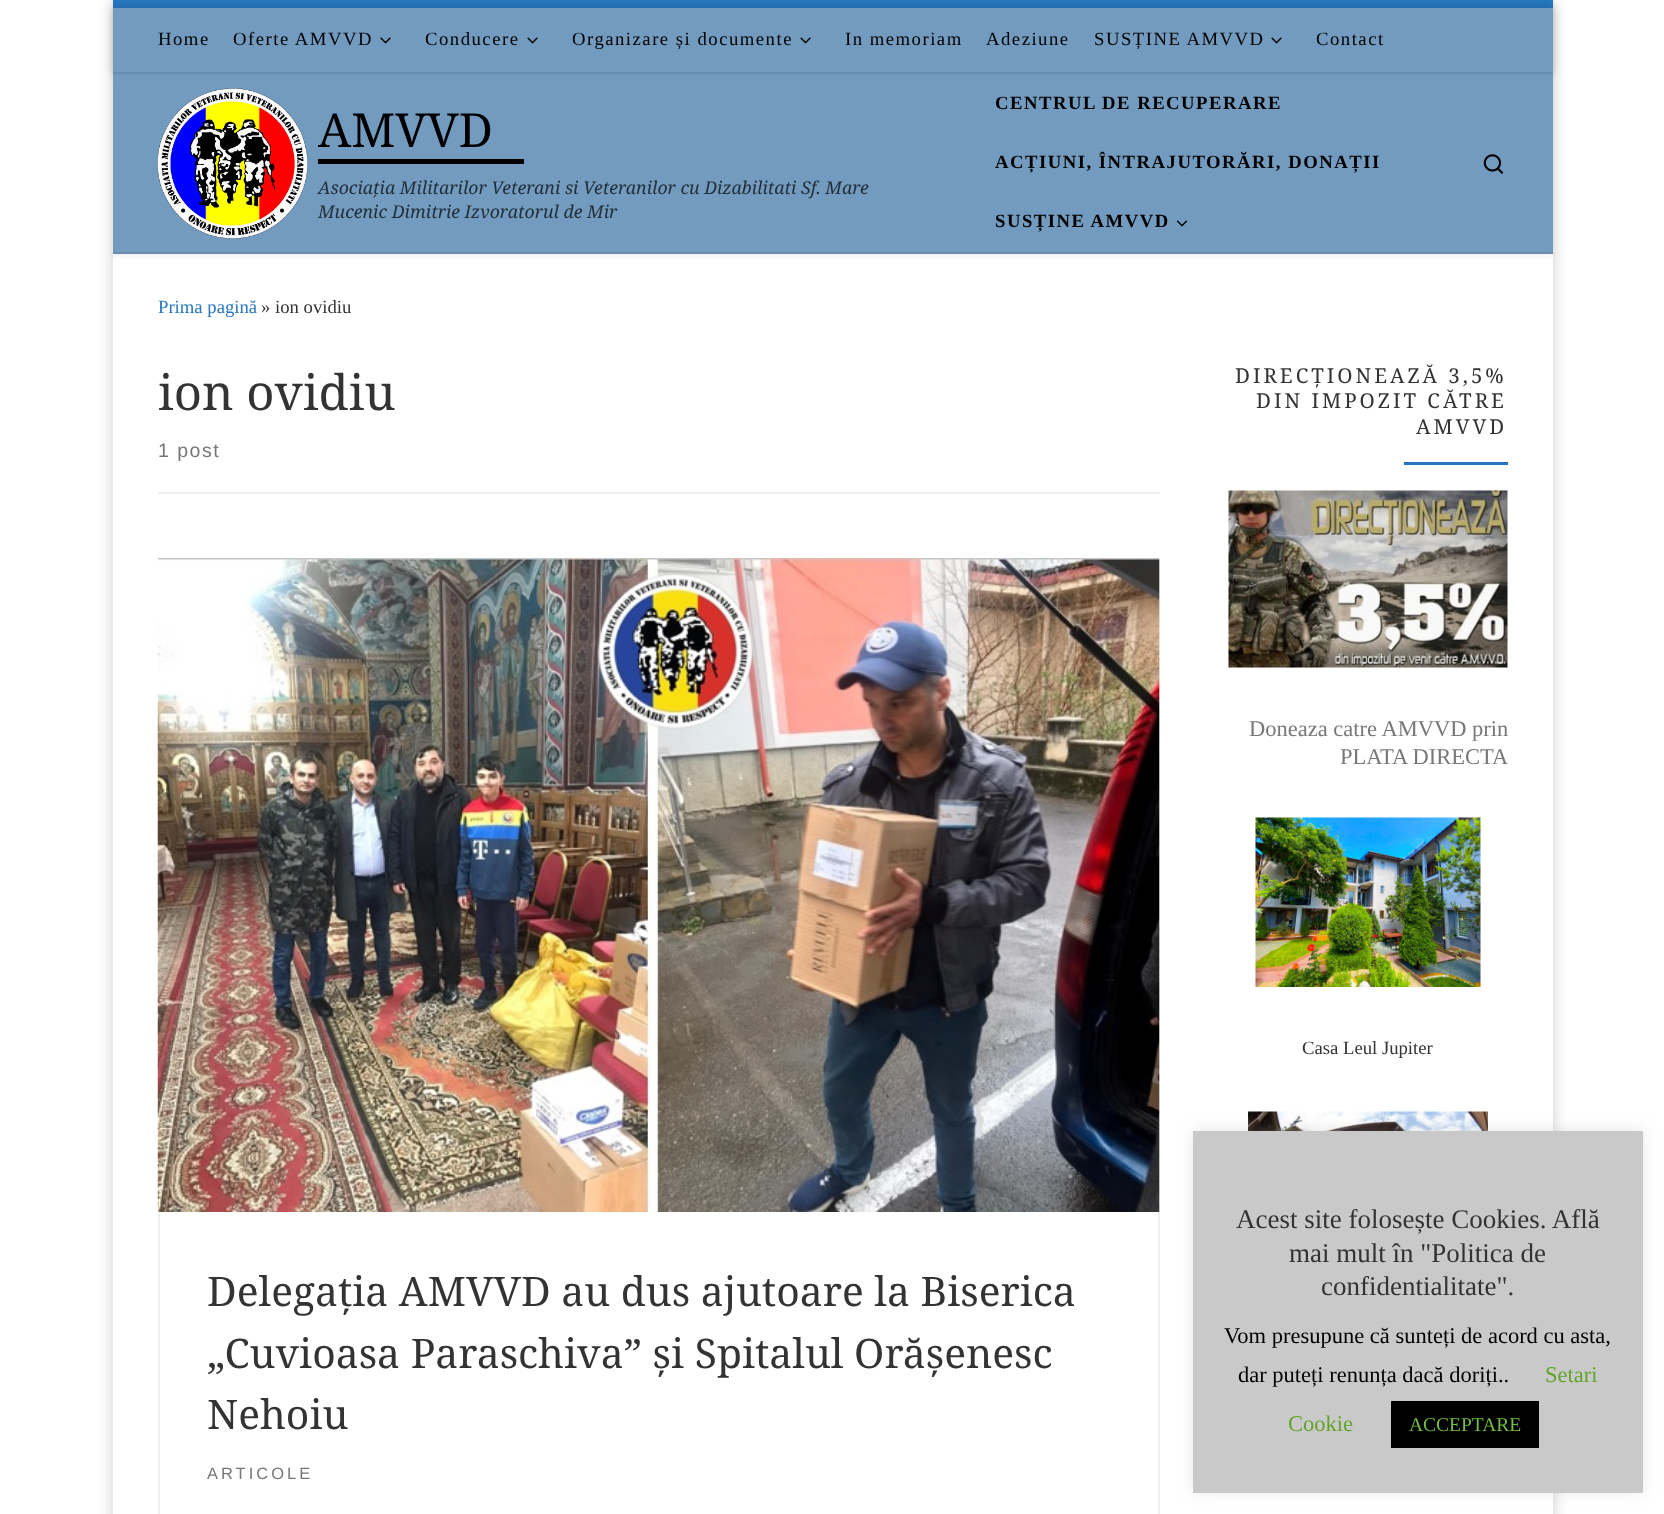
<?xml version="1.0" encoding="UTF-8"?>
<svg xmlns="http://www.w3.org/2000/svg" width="1664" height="1514">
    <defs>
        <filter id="blur1" x="-50%" y="-200%" width="200%" height="500%"><feGaussianBlur stdDeviation="7.5"/></filter>
        <filter id="blur2" x="-50%" y="-200%" width="200%" height="500%"><feGaussianBlur stdDeviation="1.5"/></filter>
        <filter id="blur3" x="-50%" y="-200%" width="200%" height="500%"><feGaussianBlur stdDeviation="4"/></filter>
    </defs>
    <rect width="100%" height="100%" fill="#FFFFFF"/>
    <rect x="113" y="0" width="1440" height="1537" fill="#000000" fill-opacity="0.2" filter="url(#blur1)"/>
    <rect x="113" y="254" width="1440" height="1260" fill="#FFFFFF"/>
    <rect x="113" y="3" width="1440" height="254" fill="#666666" fill-opacity="0.08" filter="url(#blur2)"/>
    <rect x="113" y="0" width="1440" height="8" fill="#2677BF"/>
    <rect x="113" y="252" width="1440" height="2" fill="#688DAE"/>
    <rect x="113" y="8" width="1440" height="66" fill="#000000" fill-opacity="0.2" filter="url(#blur3)"/>
    <rect x="113" y="8" width="1440" height="64" fill="#729BBF"/>
    <rect x="113" y="72" width="1440" height="2" fill="#688DAE"/>
    <text x="158" y="45" font-family="Liberation Serif" font-size="18.7" letter-spacing="1.5" fill="#000000">Home</text>
    <text x="233" y="45" font-family="Liberation Serif" font-size="18.7" letter-spacing="1.5" fill="#000000">Oferte AMVVD</text>
    <image x="380" y="37" width="11" height="7" href="img_01.png"/>
    <text x="425" y="45" font-family="Liberation Serif" font-size="18.7" letter-spacing="1.5" fill="#000000">Conducere</text>
    <image x="527" y="37" width="11" height="7" href="img_01.png"/>
    <text x="572" y="45" font-family="Liberation Serif" font-size="18.7" letter-spacing="1.5" fill="#000000">Organizare și documente</text>
    <image x="800" y="37" width="11" height="7" href="img_01.png"/>
    <text x="845" y="45" font-family="Liberation Serif" font-size="18.7" letter-spacing="1.5" fill="#000000">In memoriam</text>
    <text x="986" y="45" font-family="Liberation Serif" font-size="18.7" letter-spacing="1.5" fill="#000000">Adeziune</text>
    <text x="1094" y="45" font-family="Liberation Serif" font-size="18.7" letter-spacing="1.5" fill="#000000">SUSȚINE AMVVD</text>
    <image x="1271" y="37" width="11" height="7" href="img_01.png"/>
    <text x="1316" y="45" font-family="Liberation Serif" font-size="18.7" letter-spacing="1.5" fill="#000000">Contact</text>
    <rect x="113" y="74" width="1440" height="178" fill="#729BBF"/>
    <image x="157" y="88" width="151" height="151" href="img_02.png"/>
    <text x="318" y="147" font-family="Noto Serif" font-size="47" fill="#000000">AMVVD</text>
    <rect x="318" y="159" width="206" height="5" fill="#000000"/>
    <text font-family="Noto Serif" font-size="17.7" font-style="italic" fill="#222F39">
        <tspan x="318" y="194">Asociația Militarilor Veterani si Veteranilor cu Dizabilitati Sf. Mare</tspan>
        <tspan x="318" y="218">Mucenic Dimitrie Izvoratorul de Mir</tspan>
    </text>
    <text x="995" y="109" font-family="Liberation Serif" font-size="18.7" font-weight="700" letter-spacing="1.5" fill="#000000">CENTRUL DE RECUPERARE</text>
    <text x="995" y="168" font-family="Liberation Serif" font-size="18.7" font-weight="700" letter-spacing="1.5" fill="#000000">ACȚIUNI, ÎNTRAJUTORĂRI, DONAȚII</text>
    <text x="995" y="227" font-family="Liberation Serif" font-size="18.7" font-weight="700" letter-spacing="1.5" fill="#000000">SUSȚINE AMVVD</text>
    <image x="1176" y="220" width="12" height="7" href="img_03.png"/>
    <image x="1483" y="154" width="21" height="20" href="img_04.png"/>
    <text x="158" y="313" font-family="Liberation Serif" font-size="18.7" fill="#2677BF">Prima pagină</text>
    <text x="261" y="313" font-family="Liberation Serif" font-size="18.7" fill="#333333">» ion ovidiu</text>
    <text x="158" y="410" font-family="Noto Serif" font-size="49" fill="#333333">ion ovidiu</text>
    <text x="158" y="457" font-family="Liberation Sans" font-size="19.5" letter-spacing="1.5" fill="#777777">1 post</text>
    <rect x="158" y="492" width="1002" height="2" fill="#ECEEEF"/>
    <rect x="159" y="559" width="1000" height="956" fill="none" stroke="#EFEFEF" stroke-width="2"/>
    <image x="157" y="558" width="1003" height="654" href="img_05.png"/>
    <text font-family="Noto Serif" font-size="40.8" fill="#333333">
        <tspan x="207" y="1306">Delegația AMVVD au dus ajutoare la Biserica</tspan>
        <tspan x="207" y="1368">„Cuvioasa Paraschiva” și Spitalul Orășenesc</tspan>
        <tspan x="207" y="1429">Nehoiu</tspan>
    </text>
    <text x="207" y="1479" font-family="Liberation Sans" font-size="16.5" letter-spacing="3" fill="#777777">ARTICOLE</text>
    <text x="1235" y="383" font-family="Noto Serif" font-size="20.5" letter-spacing="3" fill="#333333">DIRECȚIONEAZĂ 3,5%</text>
    <text x="1256" y="408" font-family="Noto Serif" font-size="20.5" letter-spacing="3" fill="#333333">DIN IMPOZIT CĂTRE</text>
    <text x="1416" y="434" font-family="Noto Serif" font-size="20.5" letter-spacing="3" fill="#333333">AMVVD</text>
    <rect x="1404" y="462" width="104" height="3" fill="#2677BF"/>
    <image x="1228" y="490" width="280" height="178" href="img_06.png"/>
    <text x="1249" y="736" font-family="Liberation Serif" font-size="22.5" fill="#777777">Doneaza catre AMVVD prin</text>
    <text x="1340" y="764" font-family="Liberation Serif" font-size="22.5" fill="#777777">PLATA DIRECTA</text>
    <image x="1255" y="817" width="226" height="170" href="img_07.png"/>
    <text x="1302" y="1054" font-family="Liberation Serif" font-size="18.7" fill="#333333">Casa Leul Jupiter</text>
    <image x="1248" y="1111" width="240" height="20" href="img_08.png"/>
    <rect x="1193" y="1130" width="450" height="361" fill="#ACABAB" fill-opacity="0.3" filter="url(#blur1)"/>
    <rect x="1193" y="1131" width="450" height="362" fill="#C9C9C9"/>
    <text x="1236" y="1228" font-family="Liberation Serif" font-size="27" fill="#333333">Acest site folosește Cookies. Află</text>
    <text x="1289" y="1262" font-family="Liberation Serif" font-size="27" fill="#333333">mai mult în "Politica de</text>
    <text x="1321" y="1295" font-family="Liberation Serif" font-size="27" fill="#333333">confidentialitate".</text>
    <text x="1224" y="1343" font-family="Liberation Serif" font-size="22.5" fill="#000000">Vom presupune că sunteți de acord cu asta,</text>
    <text x="1238" y="1382" font-family="Liberation Serif" font-size="22.5" fill="#000000">dar puteți renunța dacă doriți..</text>
    <text x="1545" y="1382" font-family="Liberation Serif" font-size="22.5" fill="#62A329">Setari</text>
    <text x="1288" y="1431" font-family="Liberation Serif" font-size="22.5" fill="#62A329">Cookie</text>
    <rect x="1391" y="1401" width="148" height="47" fill="#000000"/>
    <text x="1409" y="1431" font-family="Liberation Serif" font-size="19.5" fill="#72BF3B">ACCEPTARE</text>
</svg>
